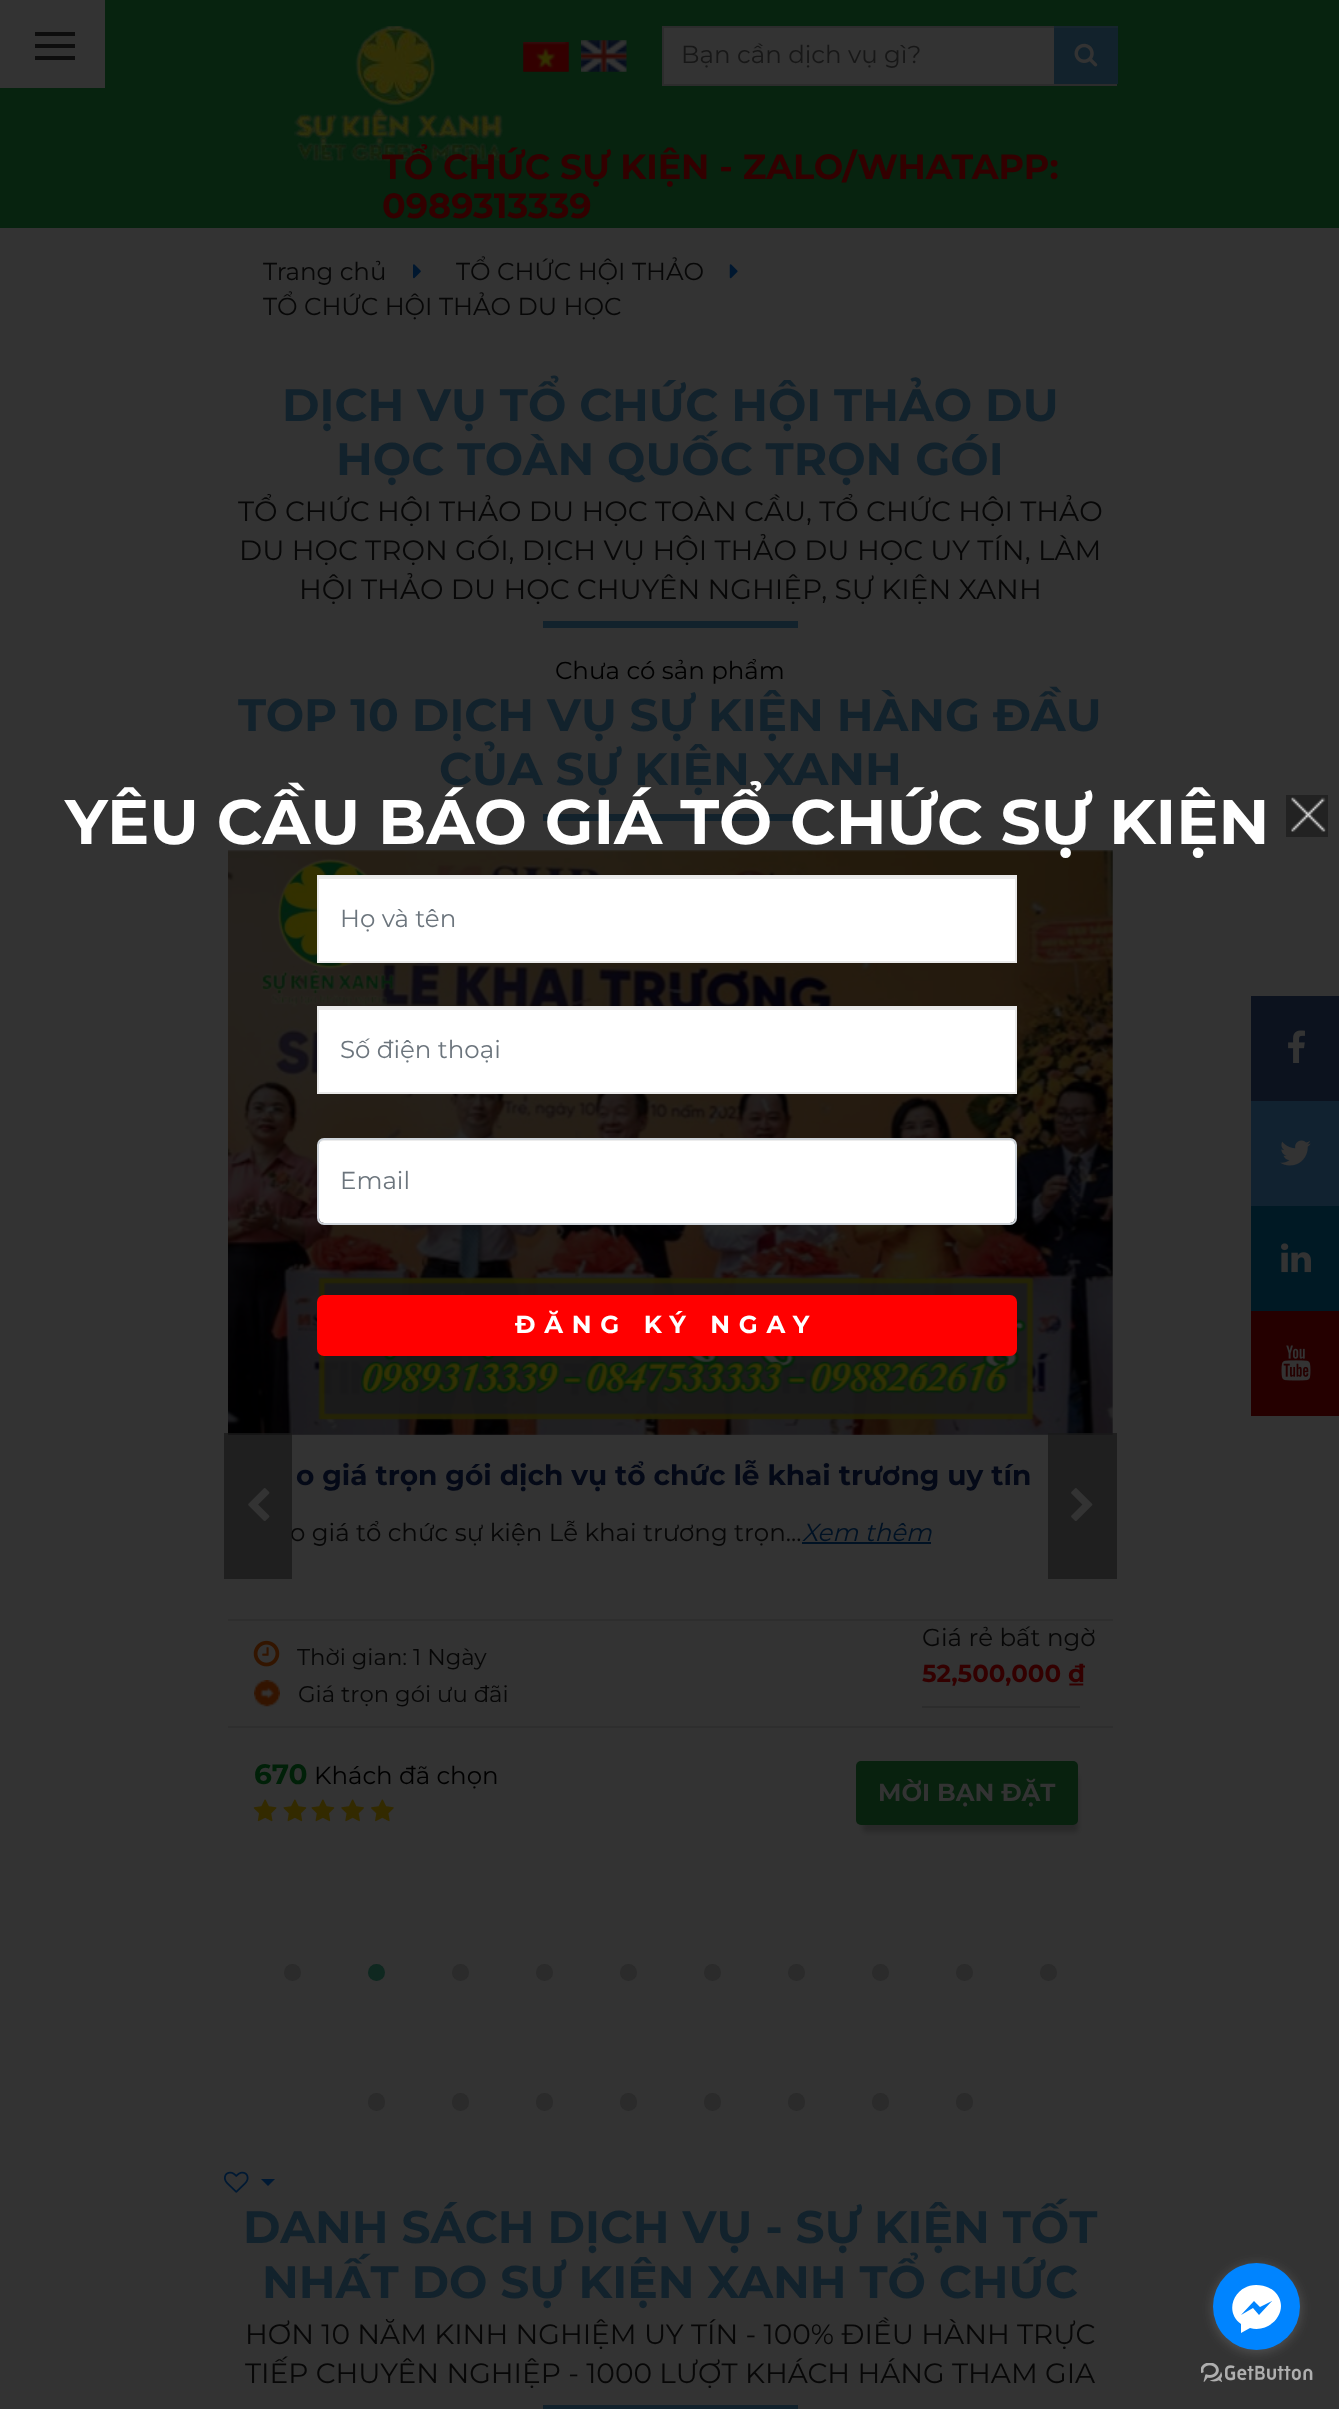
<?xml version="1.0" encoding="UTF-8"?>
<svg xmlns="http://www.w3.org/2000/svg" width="1339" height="2409">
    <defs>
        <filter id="blur1" x="-50%" y="-200%" width="200%" height="500%"><feGaussianBlur stdDeviation="2.5"/></filter>
        <filter id="blur2" x="-50%" y="-200%" width="200%" height="500%"><feGaussianBlur stdDeviation="6"/></filter>
    </defs>
    <rect width="100%" height="100%" fill="#333333"/>
    <rect x="0" y="0" width="1339" height="228" fill="#07230F"/>
    <image x="294" y="26" width="210" height="136" href="img_01.png"/>
    <rect x="0" y="0" width="105" height="88" fill="#333333"/>
    <rect x="35" y="44" width="40" height="4" fill="#0D0D0D"/>
    <rect x="35" y="32" width="40" height="4" fill="#0D0D0D"/>
    <rect x="35" y="56" width="40" height="4" fill="#0D0D0D"/>
    <image x="523" y="42" width="46" height="30" href="img_02.png"/>
    <image x="581" y="40" width="46" height="32" href="img_03.png"/>
    <rect x="664" y="28" width="390" height="56" fill="#333333"/>
    <rect x="663" y="27" width="453" height="58" fill="none" stroke="#2C2C2C" stroke-width="2"/>
    <text x="681" y="63" font-family="Montserrat" font-size="24.5" fill="#171717">Bạn cần dịch vụ gì?</text>
    <rect x="1054" y="28" width="64" height="56" fill="#12222C"/>
    <rect x="1054" y="26" width="64" height="2" fill="#17252D"/>
    <image x="1074" y="43" width="24" height="24" href="img_04.png"/>
    <text font-family="Montserrat" font-size="35" font-weight="700" fill="#330000">
        <tspan x="382" y="179">TỔ CHỨC SỰ KIỆN - ZALO/WHATAPP:</tspan>
        <tspan x="382" y="218">0989313339</tspan>
    </text>
    <text x="263" y="280" font-family="Montserrat" font-size="24.5" fill="#070707">Trang chủ</text>
    <image x="413" y="264" width="8" height="15" href="img_05.png"/>
    <text x="456" y="280" font-family="Montserrat" font-size="24.5" fill="#070707">TỔ CHỨC HỘI THẢO</text>
    <image x="729" y="264" width="9" height="15" href="img_06.png"/>
    <text x="263" y="315" font-family="Montserrat" font-size="24.5" fill="#070707">TỔ CHỨC HỘI THẢO DU HỌC</text>
    <text x="282" y="421" font-family="Montserrat" font-size="45.5" font-weight="700" fill="#12222C">DỊCH VỤ TỔ CHỨC HỘI THẢO DU</text>
    <text x="336" y="475" font-family="Montserrat" font-size="45.5" font-weight="700" fill="#12222C">HỌC TOÀN QUỐC TRỌN GÓI</text>
    <text x="238" y="521" font-family="Montserrat" font-size="28" fill="#070707">TỔ CHỨC HỘI THẢO DU HỌC TOÀN CẦU, TỔ CHỨC HỘI THẢO</text>
    <text x="239" y="560" font-family="Montserrat" font-size="28" fill="#070707">DU HỌC TRỌN GÓI, DỊCH VỤ HỘI THẢO DU HỌC UY TÍN, LÀM</text>
    <text x="299" y="599" font-family="Montserrat" font-size="28" fill="#070707">HỘI THẢO DU HỌC CHUYÊN NGHIỆP, SỰ KIỆN XANH</text>
    <rect x="543" y="621" width="255" height="7" fill="#12222C"/>
    <text x="555" y="679" font-family="Montserrat" font-size="24.5" fill="#000000">Chưa có sản phẩm</text>
    <text x="238" y="731" font-family="Montserrat" font-size="45.5" font-weight="700" fill="#12222C">TOP 10 DỊCH VỤ SỰ KIỆN HÀNG ĐẦU</text>
    <text x="439" y="785" font-family="Montserrat" font-size="45.5" font-weight="700" fill="#12222C">CỦA SỰ KIỆN XANH</text>
    <rect x="543" y="814" width="255" height="7" fill="#12222C"/>
    <image x="228" y="850" width="885" height="585" href="img_09.png"/>
    <text x="290" y="1541" font-family="Montserrat" font-size="24.5" fill="#070707">o giá tổ chức sự kiện Lễ khai trương trọn...</text>
    <rect x="224" y="1433" width="68" height="146" fill="#191919" fill-opacity="0.75"/>
    <image x="248" y="1488" width="22" height="33" href="img_07.png"/>
    <rect x="1048" y="1433" width="69" height="146" fill="#191919" fill-opacity="0.75"/>
    <image x="1071" y="1488" width="22" height="33" href="img_08.png"/>
    <text x="296" y="1485" font-family="Montserrat" font-size="28" font-weight="700" fill="#040917">o giá trọn gói dịch vụ tổ chức lễ khai trương uy tín</text>
    <text x="802" y="1541" font-family="Montserrat" font-size="24.5" font-style="italic" fill="#001224">Xem thêm</text>
    <rect x="802" y="1542" width="129" height="2" fill="#001224"/>
    <rect x="228" y="1619" width="885" height="2" fill="#2E2E2E"/>
    <rect x="228" y="1726" width="885" height="2" fill="#2E2E2E"/>
    <image x="253" y="1640" width="27" height="27" href="img_10.png"/>
    <text x="297" y="1665" font-family="Montserrat" font-size="22.75" fill="#070707">Thời gian: 1 Ngày</text>
    <image x="254" y="1680" width="26" height="27" href="img_11.png"/>
    <text x="298" y="1702" font-family="Montserrat" font-size="22.75" fill="#070707">Giá trọn gói ưu đãi</text>
    <text x="922" y="1646" font-family="Montserrat" font-size="24.5" fill="#070707">Giá rẻ bất ngờ</text>
    <text x="922" y="1682" font-family="Montserrat" font-size="24.5" font-weight="700" fill="#330000">52,500,000 ₫</text>
    <rect x="922" y="1706" width="158" height="2" fill="#2C2C2C"/>
    <text x="254" y="1784" font-family="Montserrat" font-size="28" font-weight="700" fill="#002008">670</text>
    <text x="314" y="1784" font-family="Montserrat" font-size="24.5" fill="#000000">Khách đã chọn</text>
    <image x="253" y="1799" width="24" height="23" href="img_12.png"/>
    <image x="283" y="1799" width="24" height="23" href="img_13.png"/>
    <image x="311" y="1799" width="24" height="23" href="img_13.png"/>
    <image x="341" y="1799" width="23" height="23" href="img_14.png"/>
    <image x="371" y="1799" width="23" height="23" href="img_15.png"/>
    <rect x="863" y="1775" width="215" height="57" rx="2" fill="#000000" fill-opacity="0.2" filter="url(#blur1)"/>
    <rect x="856" y="1761" width="222" height="64" rx="5" fill="#08210E"/>
    <text x="878" y="1801" font-family="Montserrat" font-size="24.5" font-weight="700" fill="#333333">MỜI BẠN ĐẶT</text>
    <circle cx="292.5" cy="1972.5" r="8.5" fill="#2B2B2B"/>
    <circle cx="376.5" cy="1972.5" r="8.5" fill="#0F2820"/>
    <circle cx="460.5" cy="1972.5" r="8.5" fill="#2B2B2B"/>
    <circle cx="544.5" cy="1972.5" r="8.5" fill="#2B2B2B"/>
    <circle cx="628.5" cy="1972.5" r="8.5" fill="#2B2B2B"/>
    <circle cx="712.5" cy="1972.5" r="8.5" fill="#2B2B2B"/>
    <circle cx="796.5" cy="1972.5" r="8.5" fill="#2B2B2B"/>
    <circle cx="880.5" cy="1972.5" r="8.5" fill="#2B2B2B"/>
    <circle cx="964.5" cy="1972.5" r="8.5" fill="#2B2B2B"/>
    <circle cx="1048.5" cy="1972.5" r="8.5" fill="#2B2B2B"/>
    <rect x="368" y="2093" width="17" height="18" rx="8.5" fill="#2B2B2B"/>
    <rect x="452" y="2093" width="17" height="18" rx="8.5" fill="#2B2B2B"/>
    <rect x="536" y="2093" width="17" height="18" rx="8.5" fill="#2B2B2B"/>
    <rect x="620" y="2093" width="17" height="18" rx="8.5" fill="#2B2B2B"/>
    <rect x="704" y="2093" width="17" height="18" rx="8.5" fill="#2B2B2B"/>
    <rect x="788" y="2093" width="17" height="18" rx="8.5" fill="#2B2B2B"/>
    <rect x="872" y="2093" width="17" height="18" rx="8.5" fill="#2B2B2B"/>
    <rect x="956" y="2093" width="17" height="18" rx="8.5" fill="#2B2B2B"/>
    <image x="224" y="2171" width="25" height="22" href="img_16.png"/>
    <path d="M 261 2179 H 275 L 268 2186 Z" fill="#001933"/>
    <text x="243" y="2243" font-family="Montserrat" font-size="45.5" font-weight="700" fill="#12222C">DANH SÁCH DỊCH VỤ - SỰ KIỆN TỐT</text>
    <text x="262" y="2298" font-family="Montserrat" font-size="45.5" font-weight="700" fill="#12222C">NHẤT DO SỰ KIỆN XANH TỔ CHỨC</text>
    <text font-family="Montserrat" font-size="28" fill="#070707">
        <tspan x="245" y="2344">HƠN 10 NĂM KINH NGHIỆM UY TÍN - 100% ĐIỀU HÀNH TRỰC</tspan>
        <tspan x="245" y="2383">TIẾP CHUYÊN NGHIỆP - 1000 LƯỢT KHÁCH HÁNG THAM GIA</tspan>
    </text>
    <rect x="543" y="2405" width="255" height="4" fill="#12222C"/>
    <text x="65" y="844" font-family="Montserrat" font-size="63" font-weight="700" fill="#FFFFFF">YÊU CẦU BÁO GIÁ TỔ CHỨC SỰ KIỆN</text>
    <rect x="319" y="879" width="696" height="82" fill="#FFFFFF"/>
    <rect x="319" y="877" width="696" height="2" fill="#ECECEC"/>
    <rect x="318" y="876" width="698" height="86" fill="none" stroke="#EAEAEA" stroke-width="2"/>
    <text x="340" y="927" font-family="Montserrat" font-size="24.5" fill="#6C757D">Họ và tên</text>
    <rect x="319" y="1010" width="696" height="82" fill="#FFFFFF"/>
    <rect x="319" y="1008" width="696" height="2" fill="#ECECEC"/>
    <rect x="318" y="1007" width="698" height="86" fill="none" stroke="#EAEAEA" stroke-width="2"/>
    <text x="340" y="1058" font-family="Montserrat" font-size="24.5" fill="#6C757D">Số điện thoại</text>
    <rect x="319" y="1139" width="696" height="84" rx="5" fill="#FFFFFF"/>
    <path d="M 324 1141 H 1010 C 1013 1141 1015 1143 1015 1146 V 1144 C 1015 1141 1013 1139 1010 1139 H 324 C 322 1139 319 1141 319 1143 C 320 1142 322 1141 324 1141 Z" fill="#000000" fill-opacity="0.07"/>
    <rect x="318" y="1139" width="698" height="85" rx="6" fill="none" stroke="#CED4DA" stroke-width="2"/>
    <text x="340" y="1189" font-family="Montserrat" font-size="24.5" fill="#6C757D">Email</text>
    <rect x="317" y="1295" width="700" height="61" rx="7" fill="#FF0000"/>
    <text x="515" y="1333" font-family="Montserrat" font-size="24.5" font-weight="700" letter-spacing="8.75" fill="#FFFFFF">ĐĂNG KÝ NGAY</text>
    <rect x="1286" y="795" width="42" height="42" fill="#222222"/>
    <image x="1291" y="797" width="35" height="35" href="img_17.png"/>
    <rect x="1251" y="996" width="88" height="105" fill="#0C121E"/>
    <image x="1288" y="1030" width="17" height="33" href="img_18.png"/>
    <rect x="1251" y="1101" width="88" height="105" fill="#112230"/>
    <image x="1280" y="1140" width="31" height="26" href="img_19.png"/>
    <rect x="1251" y="1206" width="88" height="105" fill="#001924"/>
    <image x="1281" y="1243" width="30" height="30" href="img_20.png"/>
    <rect x="1251" y="1311" width="88" height="105" fill="#250000"/>
    <image x="1281" y="1345" width="30" height="36" href="img_21.png"/>
    <image x="1201" y="2363" width="112" height="19" href="img_22.png"/>
    <rect x="1213" y="2265" width="87" height="87" rx="43.5" fill="#888888" fill-opacity="0.4" filter="url(#blur2)"/>
    <circle cx="1256.5" cy="2306.5" r="43.5" fill="#0084FF"/>
    <path d="M 1256 2285 C 1235 2285 1223 2311 1241 2324 V 2333 L 1250 2328 C 1272 2334 1292 2308 1274 2291 C 1269 2287 1263 2285 1256 2285 Z M 1259 2315 L 1253 2308 L 1241 2315 L 1254 2301 L 1260 2307 L 1272 2301 Z" fill="#FFFFFF"/>
</svg>
